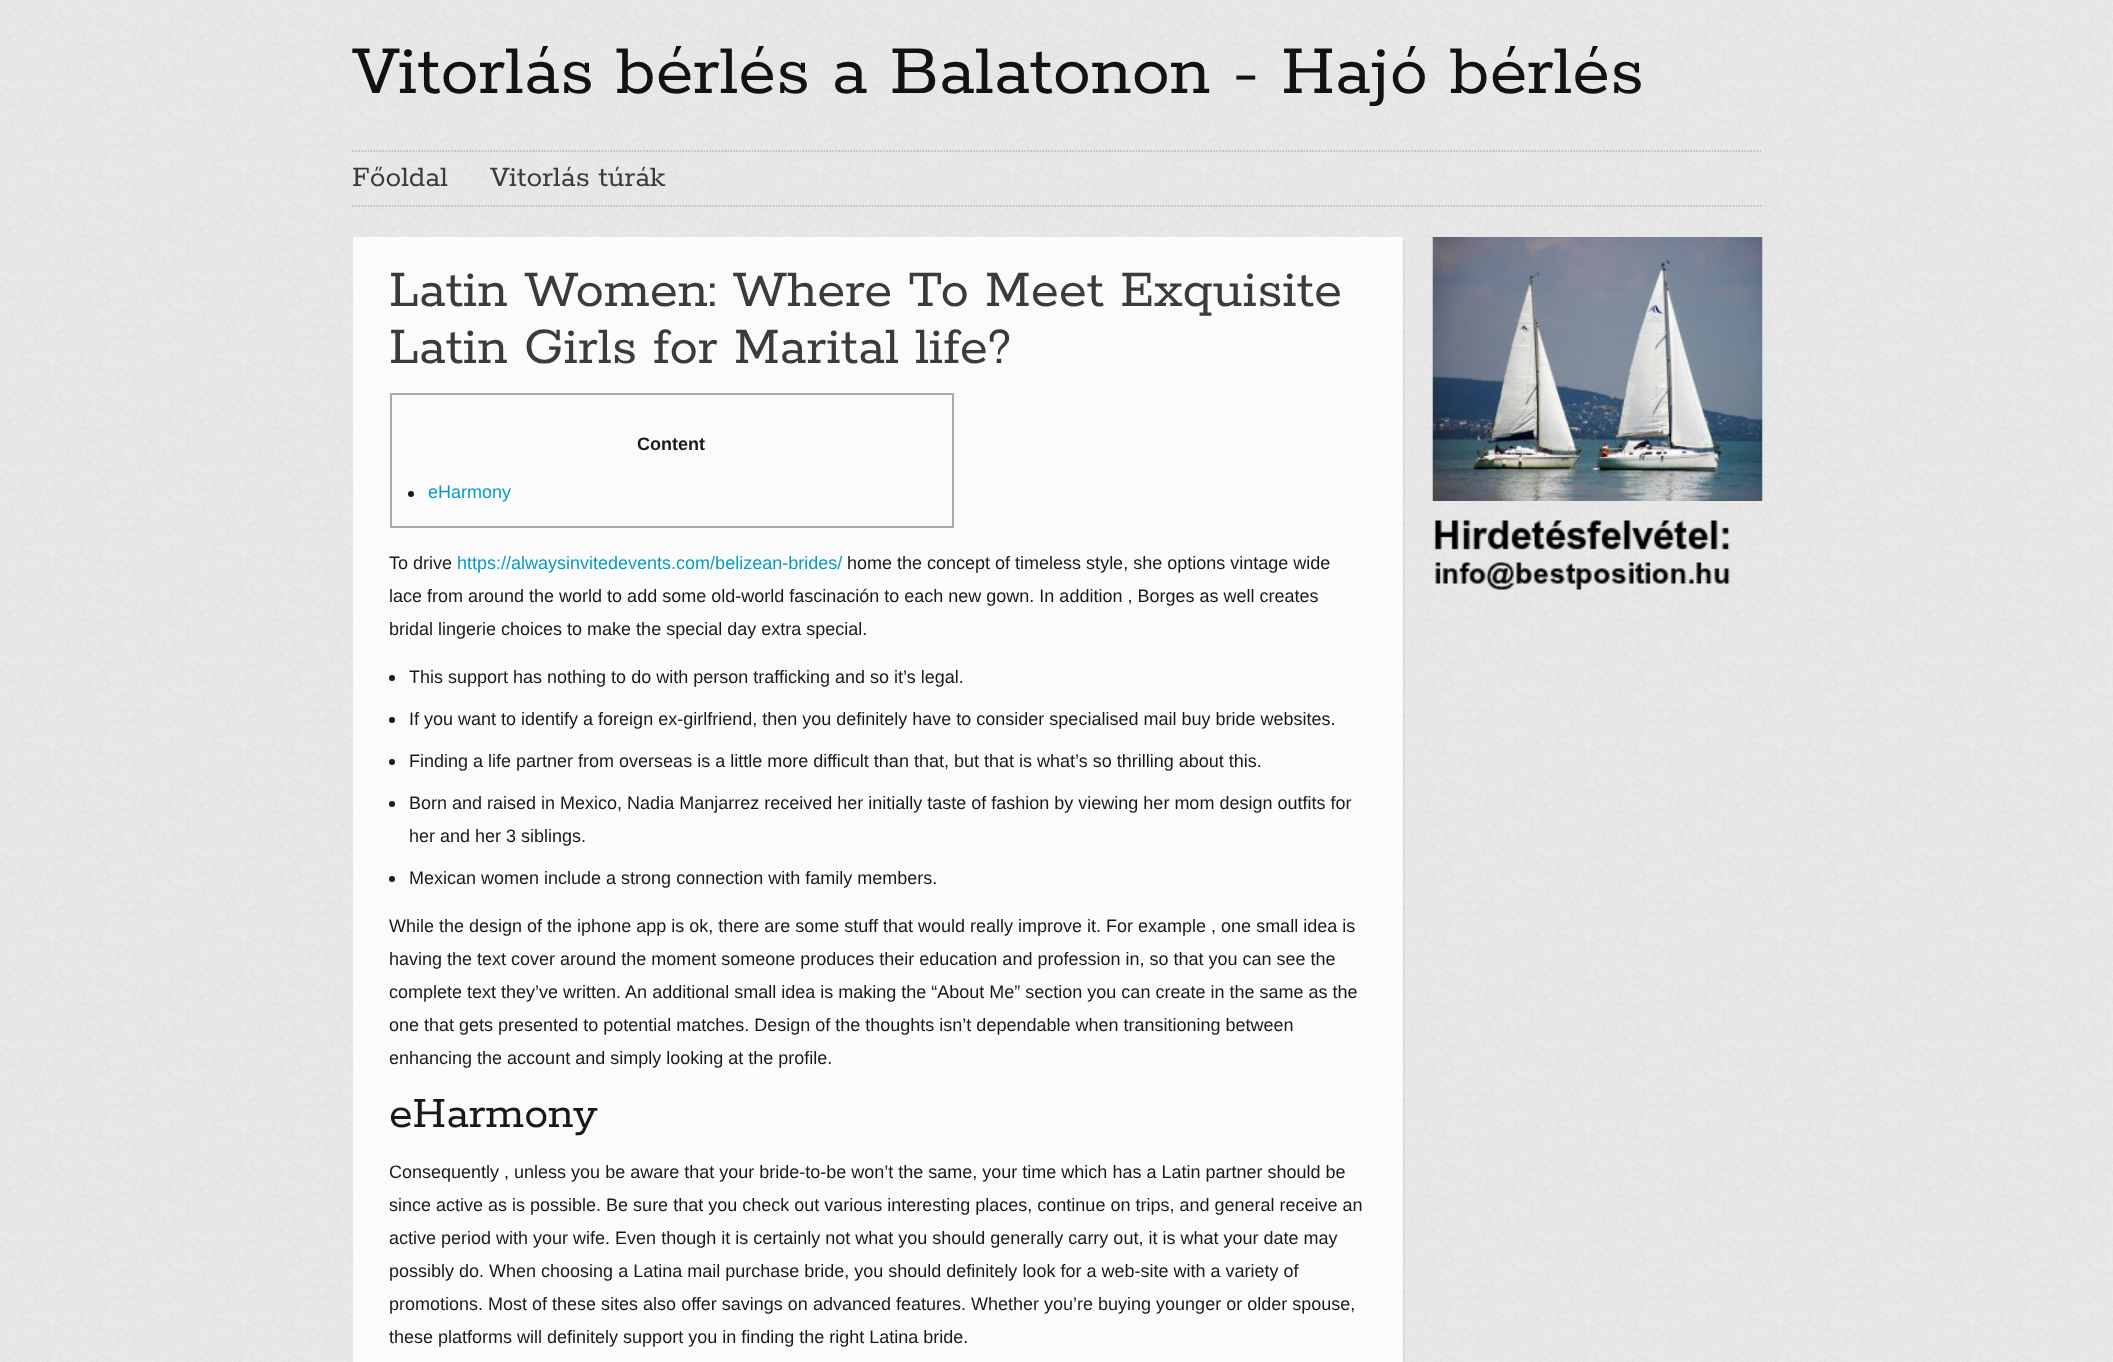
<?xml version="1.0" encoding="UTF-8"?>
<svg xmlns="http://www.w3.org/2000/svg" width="2113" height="1362">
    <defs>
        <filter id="blur1" x="-50%" y="-200%" width="200%" height="500%"><feGaussianBlur stdDeviation="1"/></filter>
    </defs>
    <rect width="100%" height="100%" fill="#FFFFFF"/>
    <image x="0" y="0" width="2113" height="1362" href="img_01.png"/>
    <text x="352" y="93" font-family="Rokkitt" font-size="76.5" font-weight="600" fill="#121212">Vitorlás bérlés a Balatonon - Hajó bérlés</text>
    <path d="M 352.5 151 H 1762.5" fill="none" stroke="#B2B2B2" stroke-width="1.5" stroke-dasharray="1.5 1.5"/>
    <path d="M 352.5 206 H 1762.5" fill="none" stroke="#B2B2B2" stroke-width="1.5" stroke-dasharray="1.5 1.5"/>
    <text x="352" y="186" font-family="Rokkitt" font-size="31.5" font-weight="600" fill="#3B3B3B">Főoldal</text>
    <text x="490" y="186" font-family="Rokkitt" font-size="31.5" font-weight="600" fill="#3B3B3B">Vitorlás túrák</text>
    <rect x="354" y="239" width="1050" height="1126" fill="#000000" fill-opacity="0.1" filter="url(#blur1)"/>
    <rect x="353" y="237" width="1050" height="1125" fill="#FBFBFB"/>
    <text font-family="Rokkitt" font-size="57" font-weight="600" fill="#3B3B3B">
        <tspan x="389" y="306">Latin Women: Where To Meet Exquisite</tspan>
        <tspan x="389" y="363">Latin Girls for Marital life?</tspan>
    </text>
    <rect x="391" y="394" width="562" height="133" fill="none" stroke="#AAAAAA" stroke-width="2"/>
    <text x="637" y="450" font-family="Liberation Sans" font-size="18" font-weight="700" fill="#191919">Content</text>
    <circle cx="411" cy="494" r="3" fill="#191919"/>
    <text x="428" y="498" font-family="Liberation Sans" font-size="18" fill="#089BC3">eHarmony</text>
    <text x="389" y="569" font-family="Liberation Sans" font-size="18" fill="#191919">To drive</text>
    <text x="457" y="569" font-family="Liberation Sans" font-size="18" fill="#089BC3">https://alwaysinvitedevents.com/belizean-brides/</text>
    <text x="847" y="569" font-family="Liberation Sans" font-size="18" fill="#191919">home the concept of timeless style, she options vintage wide</text>
    <text font-family="Liberation Sans" font-size="18" fill="#191919">
        <tspan x="389" y="602">lace from around the world to add some old-world fascinación to each new gown. In addition , Borges as well creates</tspan>
        <tspan x="389" y="635">bridal lingerie choices to make the special day extra special.</tspan>
    </text>
    <circle cx="392" cy="678" r="3" fill="#191919"/>
    <text x="409" y="683" font-family="Liberation Sans" font-size="18" fill="#191919">This support has nothing to do with person trafficking and so it’s legal.</text>
    <circle cx="392" cy="720" r="3" fill="#191919"/>
    <text x="409" y="725" font-family="Liberation Sans" font-size="18" fill="#191919">If you want to identify a foreign ex-girlfriend, then you definitely have to consider specialised mail buy bride websites.</text>
    <circle cx="392" cy="762" r="3" fill="#191919"/>
    <text x="409" y="767" font-family="Liberation Sans" font-size="18" fill="#191919">Finding a life partner from overseas is a little more difficult than that, but that is what’s so thrilling about this.</text>
    <circle cx="392" cy="804" r="3" fill="#191919"/>
    <text font-family="Liberation Sans" font-size="18" fill="#191919">
        <tspan x="409" y="809">Born and raised in Mexico, Nadia Manjarrez received her initially taste of fashion by viewing her mom design outfits for</tspan>
        <tspan x="409" y="842">her and her 3 siblings.</tspan>
    </text>
    <circle cx="392" cy="879" r="3" fill="#191919"/>
    <text x="409" y="884" font-family="Liberation Sans" font-size="18" fill="#191919">Mexican women include a strong connection with family members.</text>
    <text font-family="Liberation Sans" font-size="18" fill="#191919">
        <tspan x="389" y="932">While the design of the iphone app is ok, there are some stuff that would really improve it. For example , one small idea is</tspan>
        <tspan x="389" y="965">having the text cover around the moment someone produces their education and profession in, so that you can see the</tspan>
        <tspan x="389" y="998">complete text they’ve written. An additional small idea is making the “About Me” section you can create in the same as the</tspan>
        <tspan x="389" y="1031">one that gets presented to potential matches. Design of the thoughts isn’t dependable when transitioning between</tspan>
        <tspan x="389" y="1064">enhancing the account and simply looking at the profile.</tspan>
    </text>
    <text x="389" y="1127" font-family="Rokkitt" font-size="48" font-weight="600" fill="#191919">eHarmony</text>
    <text font-family="Liberation Sans" font-size="18" fill="#191919">
        <tspan x="389" y="1178">Consequently , unless you be aware that your bride-to-be won’t the same, your time which has a Latin partner should be</tspan>
        <tspan x="389" y="1211">since active as is possible. Be sure that you check out various interesting places, continue on trips, and general receive an</tspan>
        <tspan x="389" y="1244">active period with your wife. Even though it is certainly not what you should generally carry out, it is what your date may</tspan>
        <tspan x="389" y="1277">possibly do. When choosing a Latina mail purchase bride, you should definitely look for a web-site with a variety of</tspan>
        <tspan x="389" y="1310">promotions. Most of these sites also offer savings on advanced features. Whether you’re buying younger or older spouse,</tspan>
        <tspan x="389" y="1343">these platforms will definitely support you in finding the right Latina bride.</tspan>
    </text>
    <image x="1432" y="237" width="331" height="264" href="img_02.png"/>
    <image x="1434" y="520" width="296" height="70" href="img_03.png"/>
</svg>
